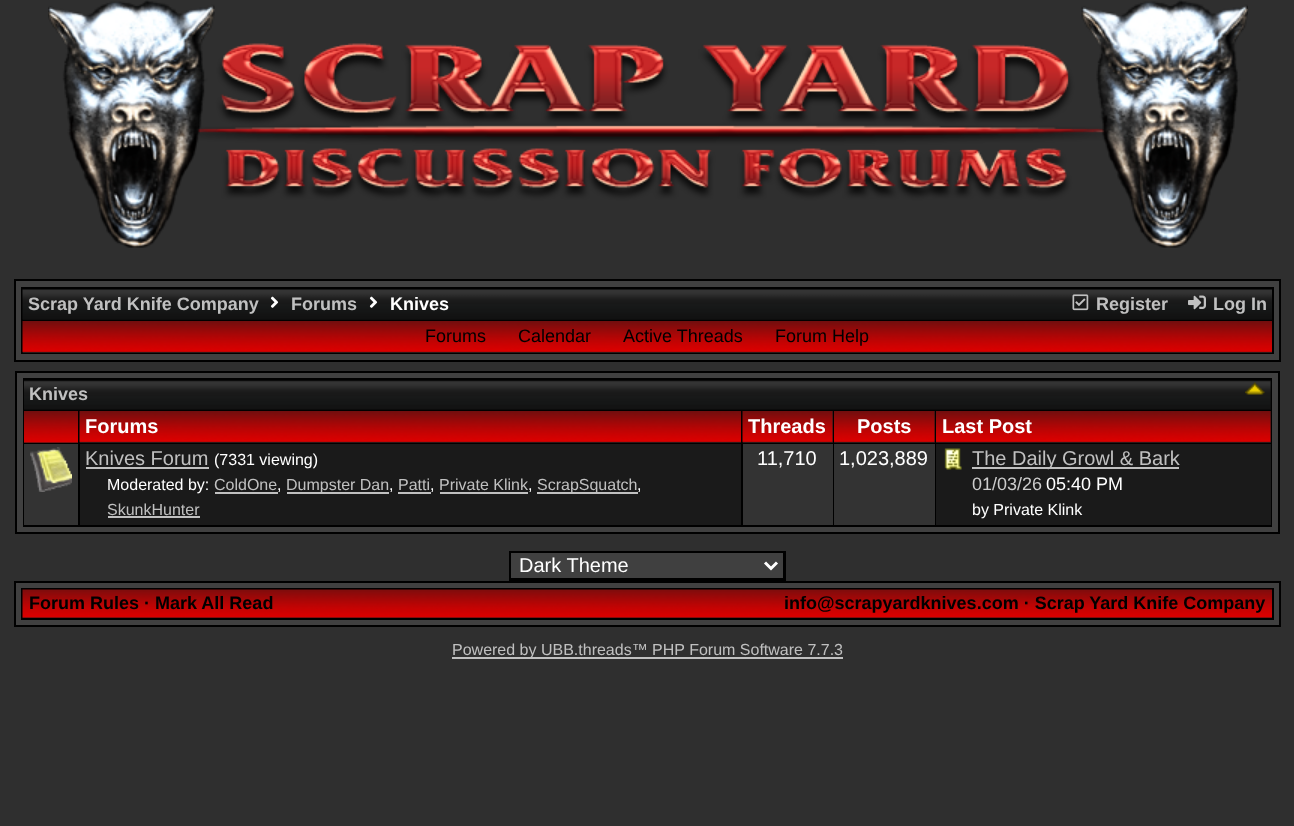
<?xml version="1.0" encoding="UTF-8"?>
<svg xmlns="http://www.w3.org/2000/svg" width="1294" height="826">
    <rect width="100%" height="100%" fill="#2F2F2F"/>
    <image x="48" y="0" width="1200" height="248" href="img_01.png"/>
    <rect x="15" y="280" width="1265" height="81" fill="#404040" stroke="#000000" stroke-width="2"/>
    <rect x="21" y="287" width="1253" height="67" fill="#000000"/>
    <rect x="23" y="319" width="1249" height="1" fill="#0B0B0B"/>
    <image x="22" y="288" width="1250" height="32" href="img_02.png"/>
    <text x="28" y="310" font-family="Liberation Sans" font-size="18" font-weight="700" fill="#C0C0C0">Scrap Yard Knife Company</text>
    <image x="270" y="296" width="9" height="12" href="img_03.png"/>
    <text x="291" y="310" font-family="Liberation Sans" font-size="18" font-weight="700" fill="#C0C0C0">Forums</text>
    <image x="369" y="296" width="9" height="12" href="img_03.png"/>
    <text x="390" y="310" font-family="Liberation Sans" font-size="18" font-weight="700" fill="#FFFFFF">Knives</text>
    <image x="1072" y="294" width="17" height="17" href="img_04.png"/>
    <text x="1096" y="310" font-family="Liberation Sans" font-size="18" font-weight="700" fill="#C0C0C0">Register</text>
    <image x="1188" y="295" width="18" height="15" href="img_05.png"/>
    <text x="1213" y="310" font-family="Liberation Sans" font-size="18" font-weight="700" fill="#C0C0C0">Log In</text>
    <rect x="23" y="352" width="1249" height="1" fill="#1A1A1A"/>
    <image x="22" y="321" width="1250" height="32" href="img_06.png"/>
    <text x="425" y="342" font-family="Liberation Sans" font-size="18" fill="#000000">Forums</text>
    <text x="518" y="342" font-family="Liberation Sans" font-size="18" fill="#000000">Calendar</text>
    <text x="623" y="342" font-family="Liberation Sans" font-size="18" fill="#000000">Active Threads</text>
    <text x="775" y="342" font-family="Liberation Sans" font-size="18" fill="#000000">Forum Help</text>
    <rect x="16" y="372" width="1263" height="161" fill="#404040" stroke="#000000" stroke-width="2"/>
    <rect x="23" y="378" width="1249" height="149" fill="#000000"/>
    <rect x="24" y="380" width="1247" height="30" fill="#0B0B0B"/>
    <image x="24" y="381" width="1247" height="28" href="img_07.png"/>
    <text x="29" y="400" font-family="Liberation Sans" font-size="18" font-weight="700" fill="#C0C0C0">Knives</text>
    <image x="1245" y="382" width="20" height="13" href="img_08.png"/>
    <rect x="24" y="442" width="54" height="1" fill="#1A1A1A"/>
    <image x="24" y="411" width="54" height="32" href="img_09.png"/>
    <rect x="80" y="442" width="661" height="1" fill="#1A1A1A"/>
    <image x="79" y="411" width="662" height="32" href="img_10.png"/>
    <text x="85" y="433" font-family="Liberation Sans" font-size="20" font-weight="700" fill="#FFFFFF">Forums</text>
    <rect x="743" y="411" width="90" height="32" fill="#1A1A1A"/>
    <image x="742" y="411" width="91" height="32" href="img_11.png"/>
    <text x="748" y="433" font-family="Liberation Sans" font-size="20" font-weight="700" fill="#FFFFFF">Threads</text>
    <rect x="834" y="411" width="101" height="32" fill="#1A1A1A"/>
    <image x="834" y="411" width="101" height="32" href="img_12.png"/>
    <text x="857" y="433" font-family="Liberation Sans" font-size="20" font-weight="700" fill="#FFFFFF">Posts</text>
    <rect x="936" y="411" width="335" height="32" fill="#1A1A1A"/>
    <image x="936" y="411" width="335" height="32" href="img_13.png"/>
    <text x="942" y="433" font-family="Liberation Sans" font-size="20" font-weight="700" fill="#FFFFFF">Last Post</text>
    <rect x="24" y="444" width="54" height="81" fill="#333333"/>
    <image x="30" y="447" width="42" height="45" href="img_14.png"/>
    <rect x="80" y="444" width="661" height="81" fill="#1A1A1A"/>
    <text x="85" y="465" font-family="Liberation Sans" font-size="20" fill="#C0C0C0">Knives Forum</text>
    <rect x="86" y="467" width="123" height="2" fill="#C0C0C0"/>
    <text x="214" y="465" font-family="Liberation Sans" font-size="16" fill="#FFFFFF">(7331 viewing)</text>
    <text x="107" y="490" font-family="Liberation Sans" font-size="16" fill="#FFFFFF">Moderated by:</text>
    <text x="214" y="490" font-family="Liberation Sans" font-size="16" fill="#C0C0C0">ColdOne</text>
    <rect x="215" y="492" width="63" height="2" fill="#C0C0C0"/>
    <text x="277" y="490" font-family="Liberation Sans" font-size="16" fill="#FFFFFF">,</text>
    <rect x="287" y="492" width="102" height="2" fill="#C0C0C0"/>
    <text x="286" y="490" font-family="Liberation Sans" font-size="16" fill="#C0C0C0">Dumpster Dan</text>
    <text x="389" y="490" font-family="Liberation Sans" font-size="16" fill="#FFFFFF">,</text>
    <text x="398" y="490" font-family="Liberation Sans" font-size="16" fill="#C0C0C0">Patti</text>
    <rect x="398" y="492" width="33" height="2" fill="#C0C0C0"/>
    <text x="430" y="490" font-family="Liberation Sans" font-size="16" fill="#FFFFFF">,</text>
    <text x="439" y="490" font-family="Liberation Sans" font-size="16" fill="#C0C0C0">Private Klink</text>
    <rect x="440" y="492" width="88" height="2" fill="#C0C0C0"/>
    <text x="528" y="490" font-family="Liberation Sans" font-size="16" fill="#FFFFFF">,</text>
    <rect x="537" y="492" width="101" height="2" fill="#C0C0C0"/>
    <text x="537" y="490" font-family="Liberation Sans" font-size="16" fill="#C0C0C0">ScrapSquatch</text>
    <text x="637" y="490" font-family="Liberation Sans" font-size="16" fill="#FFFFFF">,</text>
    <text x="107" y="515" font-family="Liberation Sans" font-size="16" fill="#C0C0C0">SkunkHunter</text>
    <rect x="108" y="516" width="92" height="2" fill="#C0C0C0"/>
    <rect x="743" y="444" width="90" height="81" fill="#333333"/>
    <text x="757" y="465" font-family="Liberation Sans" font-size="20" fill="#FFFFFF">11,710</text>
    <rect x="834" y="444" width="101" height="81" fill="#333333"/>
    <text x="839" y="465" font-family="Liberation Sans" font-size="20" fill="#FFFFFF">1,023,889</text>
    <rect x="936" y="444" width="335" height="81" fill="#1A1A1A"/>
    <image x="944" y="448" width="18" height="22" href="img_15.png"/>
    <rect x="972" y="467" width="207" height="2" fill="#C0C0C0"/>
    <text x="972" y="465" font-family="Liberation Sans" font-size="20" fill="#C0C0C0">The Daily Growl &amp; Bark</text>
    <text x="972" y="490" font-family="Liberation Sans" font-size="18" fill="#CCCCCC">01/03/26</text>
    <text x="1046" y="490" font-family="Liberation Sans" font-size="18" fill="#FFFFFF">05:40 PM</text>
    <text x="972" y="515" font-family="Liberation Sans" font-size="16" fill="#FFFFFF">by Private Klink</text>
    <rect x="511" y="553" width="272" height="25" fill="#404040"/>
    <rect x="509" y="551" width="277" height="2" fill="#000000"/>
    <rect x="783" y="551" width="3" height="30" fill="#000000"/>
    <rect x="509" y="578" width="277" height="3" fill="#000000"/>
    <rect x="509" y="551" width="2" height="30" fill="#000000"/>
    <path d="M 765 562.5 L 771 568.5 L 777 562.5" fill="none" stroke="#FFFFFF" stroke-width="3"/>
    <text x="519" y="572" font-family="Liberation Sans" font-size="20" fill="#FFFFFF">Dark Theme</text>
    <rect x="15" y="582" width="1265" height="44" fill="#404040" stroke="#000000" stroke-width="2"/>
    <rect x="21" y="588" width="1253" height="32" fill="#000000"/>
    <image x="22" y="589" width="1250" height="29" href="img_16.png"/>
    <text x="29" y="609" font-family="Liberation Sans" font-size="18" font-weight="700" fill="#000000">Forum Rules · Mark All Read</text>
    <text x="784" y="609" font-family="Liberation Sans" font-size="18" font-weight="700" fill="#000000">info@scrapyardknives.com · Scrap Yard Knife Company</text>
    <rect x="452" y="657" width="391" height="2" fill="#C0C0C0"/>
    <text x="452" y="655" font-family="Liberation Sans" font-size="16" fill="#C0C0C0">Powered by UBB.threads™ PHP Forum Software 7.7.3</text>
</svg>
